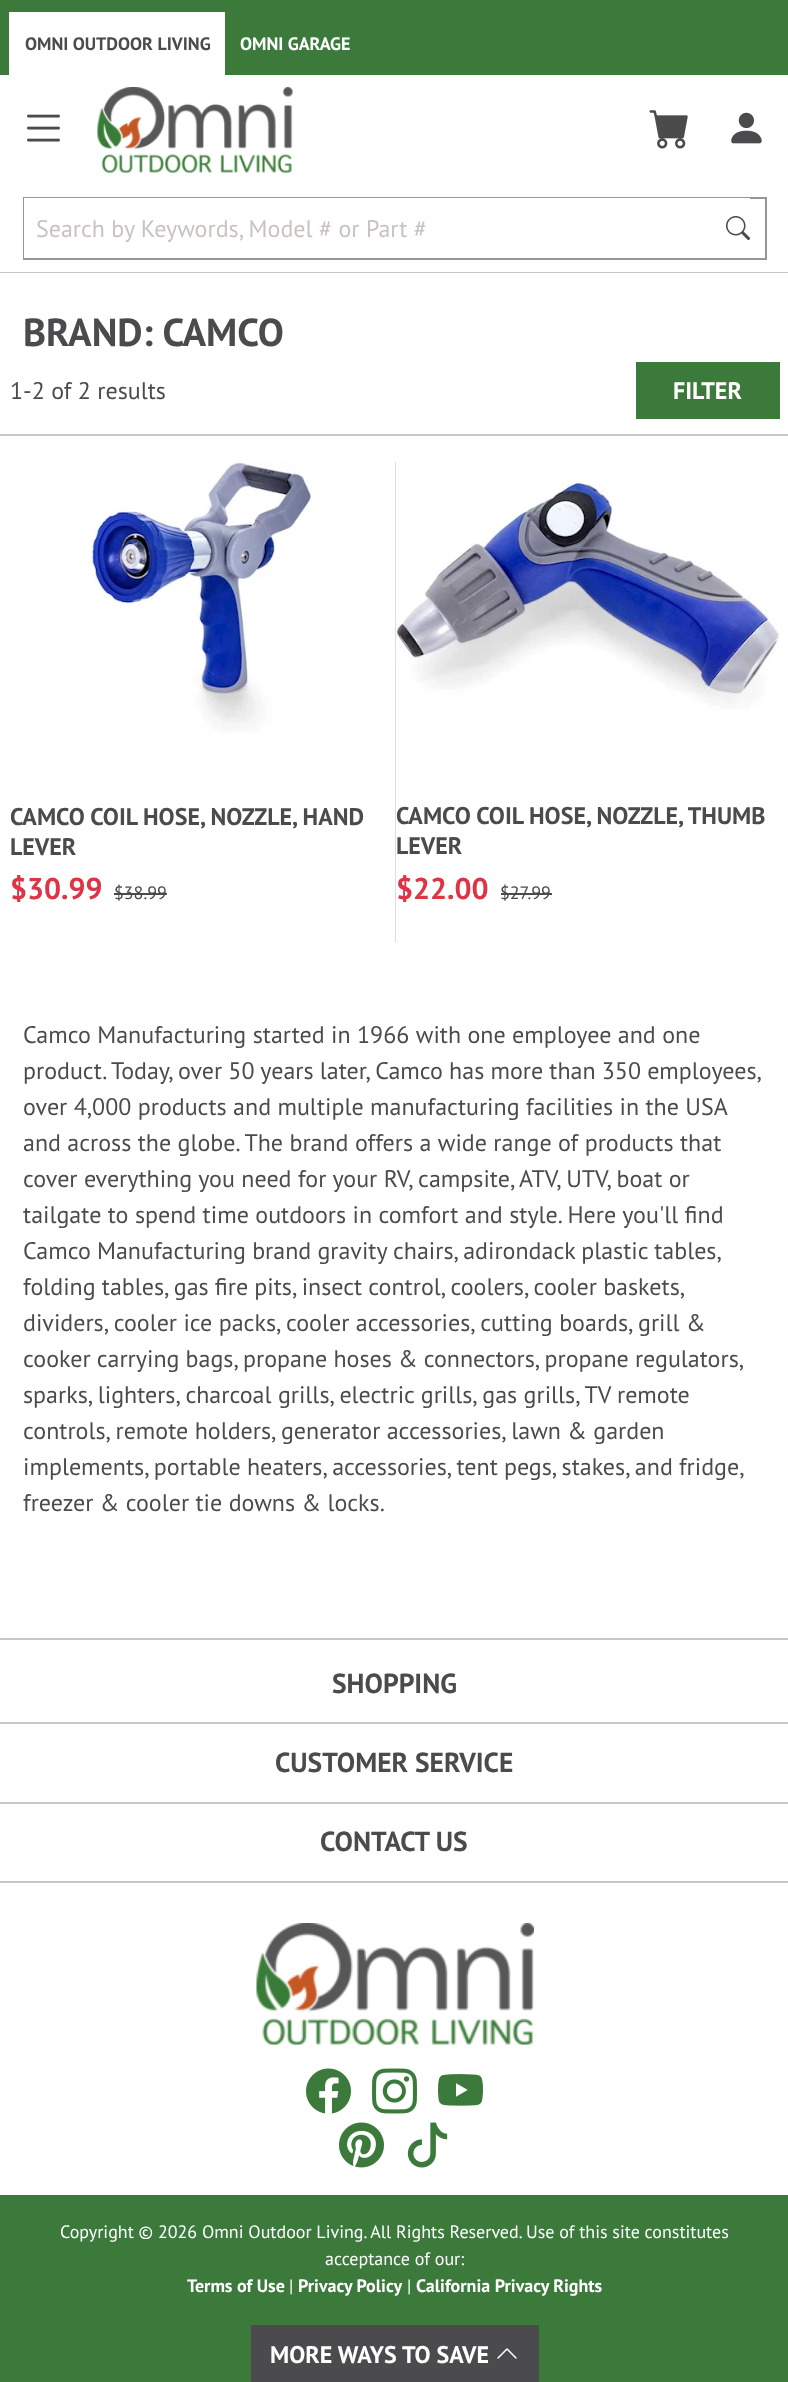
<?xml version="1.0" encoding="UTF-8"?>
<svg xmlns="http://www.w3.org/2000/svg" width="788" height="2382">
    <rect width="100%" height="100%" fill="#FFFFFF"/>
    <rect x="0" y="0" width="788" height="75" fill="#3C7A3B"/>
    <rect x="9" y="12" width="216" height="63" fill="#FFFFFF"/>
    <text x="25" y="50" font-family="PT Sans" font-size="18" font-weight="700" fill="#4B4B4D">OMNI OUTDOOR LIVING</text>
    <text x="240" y="50" font-family="PT Sans" font-size="18" font-weight="700" fill="#FFFFFF">OMNI GARAGE</text>
    <rect x="0" y="272" width="788" height="1" fill="#C5C6C8"/>
    <image x="27" y="114" width="33" height="28" href="img_01.png"/>
    <image x="97" y="87" width="196" height="86" href="img_02.png"/>
    <image x="649" y="110" width="39" height="39" href="img_03.png"/>
    <image x="731" y="112" width="31" height="32" href="img_04.png"/>
    <rect x="24" y="198" width="742" height="61" fill="none" stroke="#949698" stroke-width="2"/>
    <rect x="24" y="198" width="702" height="60" fill="#FFFFFF"/>
    <text x="36" y="237" font-family="PT Sans" font-size="24" fill="#C9C2C1">Search by Keywords, Model # or Part #</text>
    <rect x="726" y="198" width="24" height="1" fill="#FFFFFF"/>
    <image x="726" y="216" width="24" height="24" href="img_05.png"/>
    <text x="23" y="346" font-family="PT Sans" font-size="39" font-weight="700" fill="#4B4B4D">BRAND: CAMCO</text>
    <rect x="0" y="434" width="788" height="2" fill="#C5C6C8"/>
    <text x="10" y="399" font-family="PT Sans" font-size="24" fill="#4B4B4D">1-2 of 2 results</text>
    <rect x="636" y="362" width="144" height="57" fill="#3C7A3B"/>
    <text x="673" y="399" font-family="PT Sans" font-size="24" font-weight="700" fill="#FFFFFF">FILTER</text>
    <image x="88" y="462" width="223" height="271" href="img_06.png"/>
    <text font-family="PT Sans" font-size="24" font-weight="700" fill="#4B4B4D">
        <tspan x="10" y="825">CAMCO COIL HOSE, NOZZLE, HAND</tspan>
        <tspan x="10" y="855">LEVER</tspan>
    </text>
    <text x="10" y="899" font-family="PT Sans" font-size="30" font-weight="700" fill="#DC3545">$30.99</text>
    <text x="114" y="899" font-family="PT Sans" font-size="18" fill="#4B4B4D">$38.99</text>
    <rect x="114" y="893" width="53" height="2" fill="#4B4B4D"/>
    <rect x="395" y="462" width="1" height="482" fill="#DCDDDE"/>
    <image x="396" y="481" width="383" height="229" href="img_07.png"/>
    <text font-family="PT Sans" font-size="24" font-weight="700" fill="#4B4B4D">
        <tspan x="396" y="824">CAMCO COIL HOSE, NOZZLE, THUMB</tspan>
        <tspan x="396" y="854">LEVER</tspan>
    </text>
    <text x="396" y="899" font-family="PT Sans" font-size="30" font-weight="700" fill="#DC3545">$22.00</text>
    <text x="500" y="899" font-family="PT Sans" font-size="18" fill="#4B4B4D">$27.99</text>
    <rect x="501" y="893" width="51" height="2" fill="#4B4B4D"/>
    <rect x="395" y="942" width="1" height="2" fill="#FFFFFF"/>
    <text font-family="PT Sans" font-size="24" fill="#4B4B4D">
        <tspan x="23" y="1043">Camco Manufacturing started in 1966 with one employee and one</tspan>
        <tspan x="23" y="1079" word-spacing="-0.25">product. Today, over 50 years later, Camco has more than 350 employees,</tspan>
        <tspan x="23" y="1115">over 4,000 products and multiple manufacturing facilities in the USA</tspan>
        <tspan x="23" y="1151">and across the globe. The brand offers a wide range of products that</tspan>
        <tspan x="23" y="1187">cover everything you need for your RV, campsite, ATV, UTV, boat or</tspan>
        <tspan x="23" y="1223">tailgate to spend time outdoors in comfort and style. Here you'll find</tspan>
        <tspan x="23" y="1259" word-spacing="-0.25">Camco Manufacturing brand gravity chairs, adirondack plastic tables,</tspan>
        <tspan x="23" y="1295" word-spacing="-0.25">folding tables, gas fire pits, insect control, coolers, cooler baskets,</tspan>
        <tspan x="23" y="1331">dividers, cooler ice packs, cooler accessories, cutting boards, grill &amp;</tspan>
        <tspan x="23" y="1367" word-spacing="-0.25">cooker carrying bags, propane hoses &amp; connectors, propane regulators,</tspan>
        <tspan x="23" y="1403">sparks, lighters, charcoal grills, electric grills, gas grills, TV remote</tspan>
        <tspan x="23" y="1439">controls, remote holders, generator accessories, lawn &amp; garden</tspan>
        <tspan x="23" y="1475" word-spacing="-0.25">implements, portable heaters, accessories, tent pegs, stakes, and fridge,</tspan>
        <tspan x="23" y="1511">freezer &amp; cooler tie downs &amp; locks.</tspan>
    </text>
    <rect x="0" y="1638" width="788" height="2" fill="#C5C6C8"/>
    <rect x="0" y="1722" width="788" height="2" fill="#C5C6C8"/>
    <text x="332" y="1693" font-family="PT Sans" font-size="27.5" font-weight="700" fill="#4B4B4D">SHOPPING</text>
    <rect x="0" y="1802" width="788" height="2" fill="#C5C6C8"/>
    <text x="275" y="1772" font-family="PT Sans" font-size="27.5" font-weight="700" fill="#4B4B4D">CUSTOMER SERVICE</text>
    <rect x="0" y="1881" width="788" height="2" fill="#C5C6C8"/>
    <text x="320" y="1851" font-family="PT Sans" font-size="27.5" font-weight="700" fill="#4B4B4D">CONTACT US</text>
    <image x="256" y="1923" width="278" height="122" href="img_08.png"/>
    <image x="306" y="2068" width="45" height="46" href="img_09.png"/>
    <image x="372" y="2068" width="45" height="46" href="img_10.png"/>
    <image x="438" y="2074" width="45" height="32" href="img_11.png"/>
    <image x="339" y="2122" width="45" height="46" href="img_12.png"/>
    <image x="407" y="2122" width="41" height="46" href="img_13.png"/>
    <rect x="0" y="2195" width="788" height="187" fill="#3C7A3B"/>
    <text x="60" y="2238" font-family="PT Sans" font-size="18" fill="#FFFFFF">Copyright © 2026 Omni Outdoor Living. All Rights Reserved. Use of this site constitutes</text>
    <text x="325" y="2265" font-family="PT Sans" font-size="18" fill="#FFFFFF">acceptance of our:</text>
    <text x="187" y="2292" font-family="PT Sans" font-size="18" font-weight="700" fill="#FFFFFF">Terms of Use</text>
    <text x="289" y="2292" font-family="PT Sans" font-size="18" fill="#FFFFFF">|</text>
    <text x="298" y="2292" font-family="PT Sans" font-size="18" font-weight="700" fill="#FFFFFF">Privacy Policy</text>
    <text x="407" y="2292" font-family="PT Sans" font-size="18" fill="#FFFFFF">|</text>
    <text x="416" y="2292" font-family="PT Sans" font-size="18" font-weight="700" fill="#FFFFFF">California Privacy Rights</text>
    <rect x="251" y="2325" width="288" height="57" fill="#4B4B4D"/>
    <text x="270" y="2363" font-family="PT Sans" font-size="24" font-weight="700" fill="#FFFFFF">MORE WAYS TO SAVE</text>
    <image x="497" y="2348" width="20" height="11" href="img_14.png"/>
</svg>
